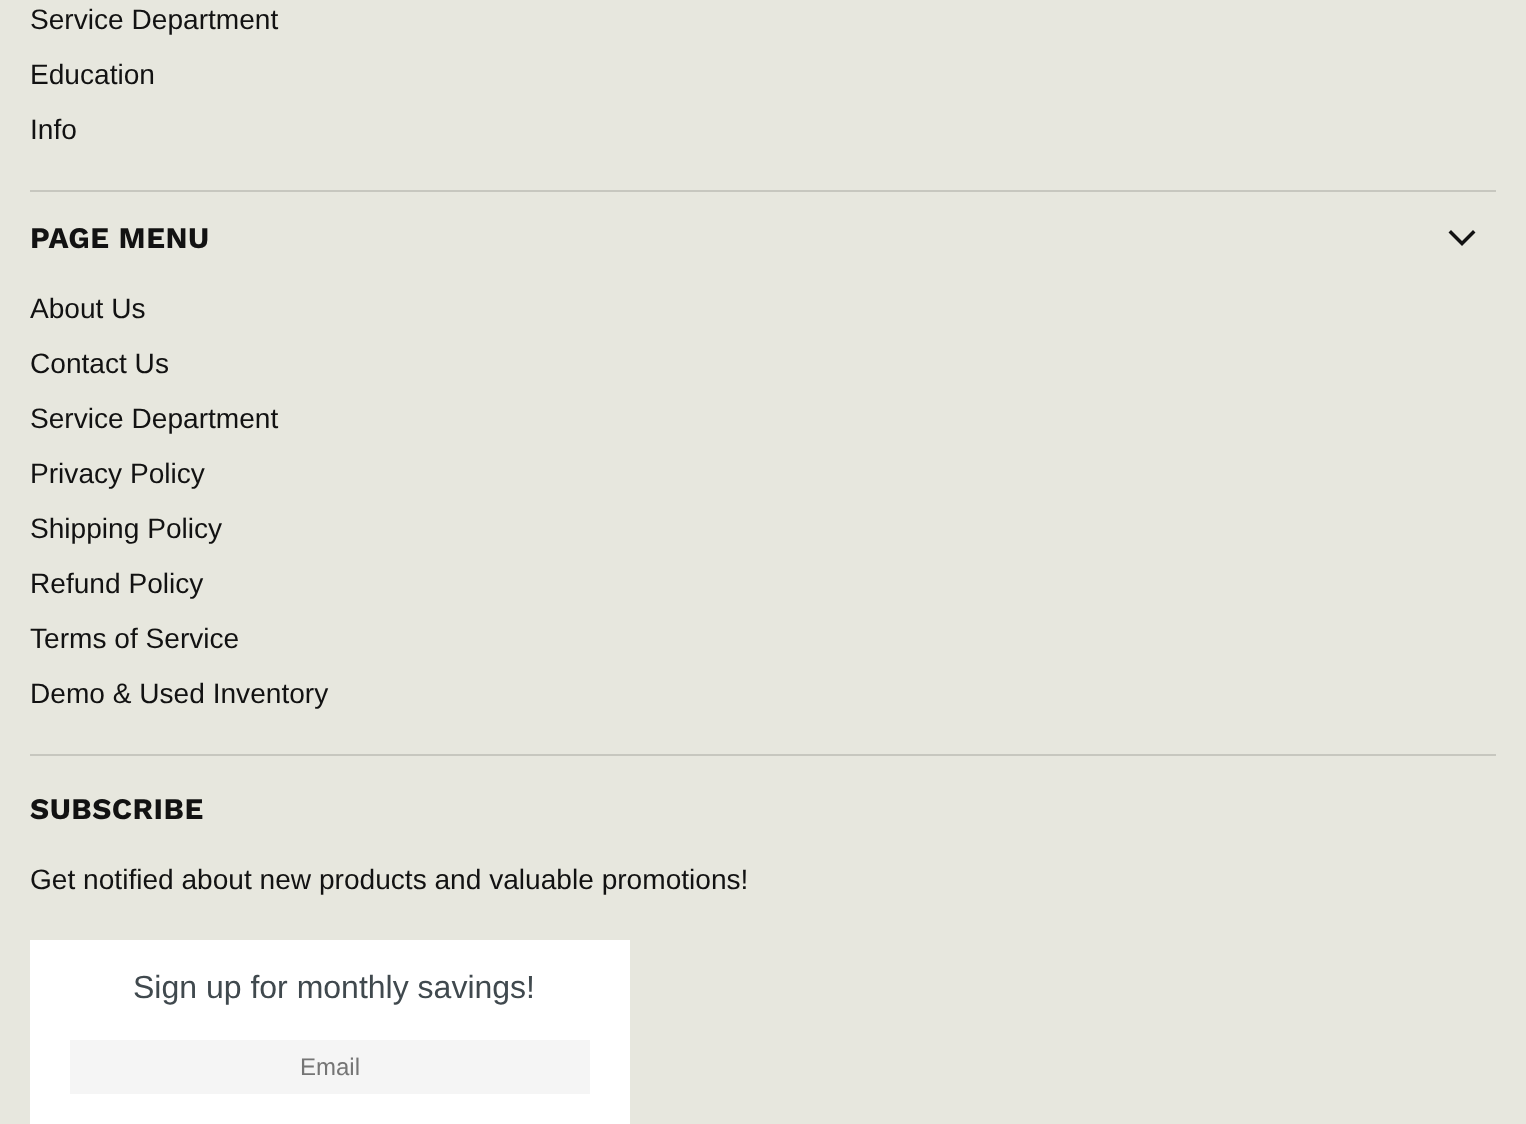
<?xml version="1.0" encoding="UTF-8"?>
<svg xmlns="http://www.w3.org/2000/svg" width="1526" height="1124">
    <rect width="100%" height="100%" fill="#E7E7DE"/>
    <rect x="30" y="190" width="1466" height="2" fill="#C7C7BF"/>
    <text font-family="Liberation Sans" font-size="28.1" fill="#121212">
        <tspan x="30" y="29">Service Department</tspan>
        <tspan x="30" y="84">Education</tspan>
        <tspan x="30" y="139">Info</tspan>
    </text>
    <rect x="30" y="754" width="1466" height="2" fill="#C7C7BF"/>
    <text x="30" y="248" font-family="Work Sans" font-size="29.75" font-weight="700" letter-spacing="0.5" fill="#121212">PAGE MENU</text>
    <path d="M 1462 243.5 L 1473 232.5 M 1462 243.5 L 1451 232.5" fill="none" stroke="#121212" stroke-width="3.5" stroke-linecap="square"/>
    <text font-family="Liberation Sans" font-size="28.1" fill="#121212">
        <tspan x="30" y="318">About Us</tspan>
        <tspan x="30" y="373">Contact Us</tspan>
        <tspan x="30" y="428">Service Department</tspan>
        <tspan x="30" y="483">Privacy Policy</tspan>
        <tspan x="30" y="538">Shipping Policy</tspan>
        <tspan x="30" y="593">Refund Policy</tspan>
        <tspan x="30" y="648">Terms of Service</tspan>
        <tspan x="30" y="703">Demo &amp; Used Inventory</tspan>
    </text>
    <text x="30" y="819" font-family="Work Sans" font-size="29.75" font-weight="700" letter-spacing="0.5" fill="#121212">SUBSCRIBE</text>
    <text x="30" y="889" font-family="Liberation Sans" font-size="28.1" fill="#121212">Get notified about new products and valuable promotions!</text>
    <rect x="30" y="940" width="600" height="184" fill="#FFFFFF"/>
    <text x="133" y="998" font-family="Liberation Sans" font-size="32" fill="#40494E">Sign up for monthly savings!</text>
    <rect x="70" y="1040" width="520" height="54" fill="#F5F5F5"/>
    <text x="300" y="1075" font-family="Liberation Sans" font-size="24" fill="#757575">Email</text>
</svg>
